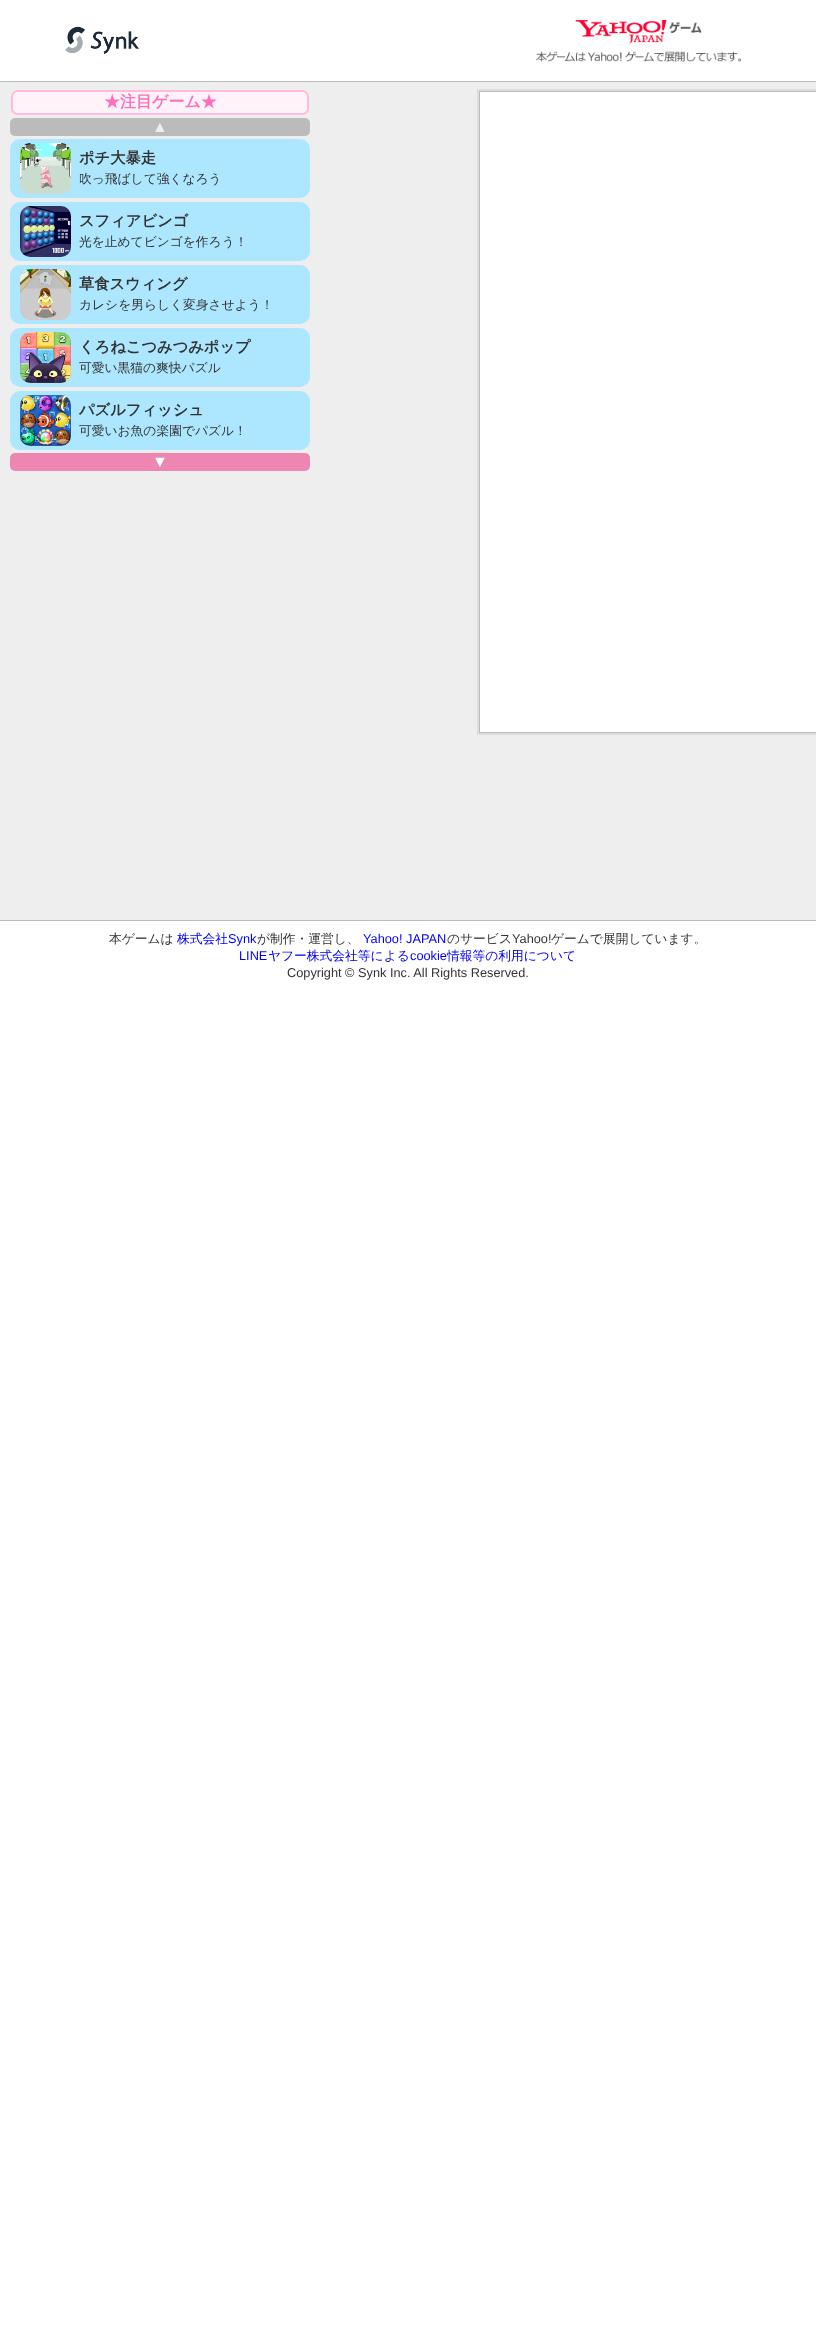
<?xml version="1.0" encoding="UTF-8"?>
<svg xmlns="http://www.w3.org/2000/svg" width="816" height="2345">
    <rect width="100%" height="100%" fill="#FFFFFF"/>
    <rect x="0" y="81" width="816" height="1" fill="#BBBBBB"/>
    <image x="65" y="26" width="74" height="28" href="img_01.png"/>
    <image x="536" y="20" width="205" height="42" href="img_02.png"/>
    <rect x="0" y="82" width="816" height="838" fill="#EEEEEE"/>
    <rect x="12" y="91" width="296" height="23" rx="6" fill="none" stroke="#FFBADD" stroke-width="2"/>
    <rect x="13" y="92" width="294" height="21" rx="5" fill="#FFF3F9"/>
    <text x="104" y="107" font-family="WenQuanYi Zen Hei" font-size="16" font-weight="700" fill="#FF6FBC">★注目ゲーム★</text>
    <rect x="10" y="118" width="300" height="18" rx="5" fill="#BBBBBB"/>
    <text x="152" y="132" font-family="Liberation Sans" font-size="16" fill="#EEEEEE">▲</text>
    <rect x="10" y="139" width="300" height="59" rx="10" fill="#ACE7FF"/>
    <image x="20" y="143" width="51" height="51" href="img_03.png"/>
    <text x="79" y="163" font-family="WenQuanYi Zen Hei" font-size="15.25" font-weight="700" fill="#333333">ポチ大暴走</text>
    <text x="79" y="183" font-family="WenQuanYi Zen Hei" font-size="12.75" font-weight="500" fill="#333333">吹っ飛ばして強くなろう</text>
    <rect x="10" y="202" width="300" height="59" rx="10" fill="#ACE7FF"/>
    <image x="20" y="206" width="51" height="51" href="img_04.png"/>
    <text x="79" y="226" font-family="WenQuanYi Zen Hei" font-size="15.25" font-weight="700" fill="#333333">スフィアビンゴ</text>
    <text x="79" y="246" font-family="WenQuanYi Zen Hei" font-size="12.75" font-weight="500" fill="#333333">光を止めてビンゴを作ろう！</text>
    <rect x="10" y="265" width="300" height="59" rx="10" fill="#ACE7FF"/>
    <image x="20" y="269" width="51" height="51" href="img_05.png"/>
    <text x="79" y="289" font-family="WenQuanYi Zen Hei" font-size="15.25" font-weight="700" fill="#333333">草食スウィング</text>
    <text x="79" y="309" font-family="WenQuanYi Zen Hei" font-size="12.75" font-weight="500" fill="#333333">カレシを男らしく変身させよう！</text>
    <rect x="10" y="328" width="300" height="59" rx="10" fill="#ACE7FF"/>
    <image x="20" y="332" width="51" height="51" href="img_06.png"/>
    <text x="79" y="352" font-family="WenQuanYi Zen Hei" font-size="15.25" font-weight="700" fill="#333333">くろねこつみつみポップ</text>
    <text x="79" y="372" font-family="WenQuanYi Zen Hei" font-size="12.75" font-weight="500" fill="#333333">可愛い黒猫の爽快パズル</text>
    <rect x="10" y="391" width="300" height="59" rx="10" fill="#ACE7FF"/>
    <image x="20" y="395" width="51" height="51" href="img_07.png"/>
    <text x="79" y="415" font-family="WenQuanYi Zen Hei" font-size="15.25" font-weight="700" fill="#333333">パズルフィッシュ</text>
    <text x="79" y="435" font-family="WenQuanYi Zen Hei" font-size="12.75" font-weight="500" fill="#333333">可愛いお魚の楽園でパズル！</text>
    <rect x="10" y="453" width="300" height="18" rx="5" fill="#ED86B3"/>
    <text x="152" y="467" font-family="Liberation Sans" font-size="16" fill="#FFFFFF">▼</text>
    <rect x="478.5" y="90.5" width="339" height="643" fill="none" stroke="#DDDDDD" stroke-width="3"/>
    <rect x="479.5" y="91.5" width="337" height="641" fill="#FFFFFF" stroke="#BBBBBB"/>
    <rect x="0" y="920" width="816" height="1" fill="#BBBBBB"/>
    <text x="109" y="943" font-family="WenQuanYi Zen Hei" font-size="12.75" font-weight="500" fill="#333333">本ゲームは</text>
    <text x="177" y="943" font-family="WenQuanYi Zen Hei" font-size="12.75" font-weight="500" fill="#0000EE">株式会社</text>
    <text x="228" y="943" font-family="Liberation Sans" font-size="12.75" fill="#0000EE">Synk</text>
    <text x="257" y="943" font-family="WenQuanYi Zen Hei" font-size="12.75" font-weight="500" fill="#333333">が制作・運営し、</text>
    <text x="363" y="943" font-family="Liberation Sans" font-size="12.75" fill="#0000EE">Yahoo! JAPAN</text>
    <text x="447" y="943" font-family="WenQuanYi Zen Hei" font-size="12.75" font-weight="500" fill="#333333">のサービス</text>
    <text x="512" y="943" font-family="Liberation Sans" font-size="12.75" fill="#333333">Yahoo!</text>
    <text x="551" y="943" font-family="WenQuanYi Zen Hei" font-size="12.75" font-weight="500" fill="#333333">ゲームで展開しています。</text>
    <text x="239" y="960" font-family="Liberation Sans" font-size="12.75" fill="#0000EE">LINE</text>
    <text x="268" y="960" font-family="WenQuanYi Zen Hei" font-size="12.75" font-weight="500" fill="#0000EE">ヤフー株式会社等による</text>
    <text x="410" y="960" font-family="Liberation Sans" font-size="12.75" fill="#0000EE">cookie</text>
    <text x="447" y="960" font-family="WenQuanYi Zen Hei" font-size="12.75" font-weight="500" fill="#0000EE">情報等の利用について</text>
    <text x="287" y="977" font-family="Liberation Sans" font-size="12.75" fill="#333333">Copyright © Synk Inc. All Rights Reserved.</text>
</svg>
